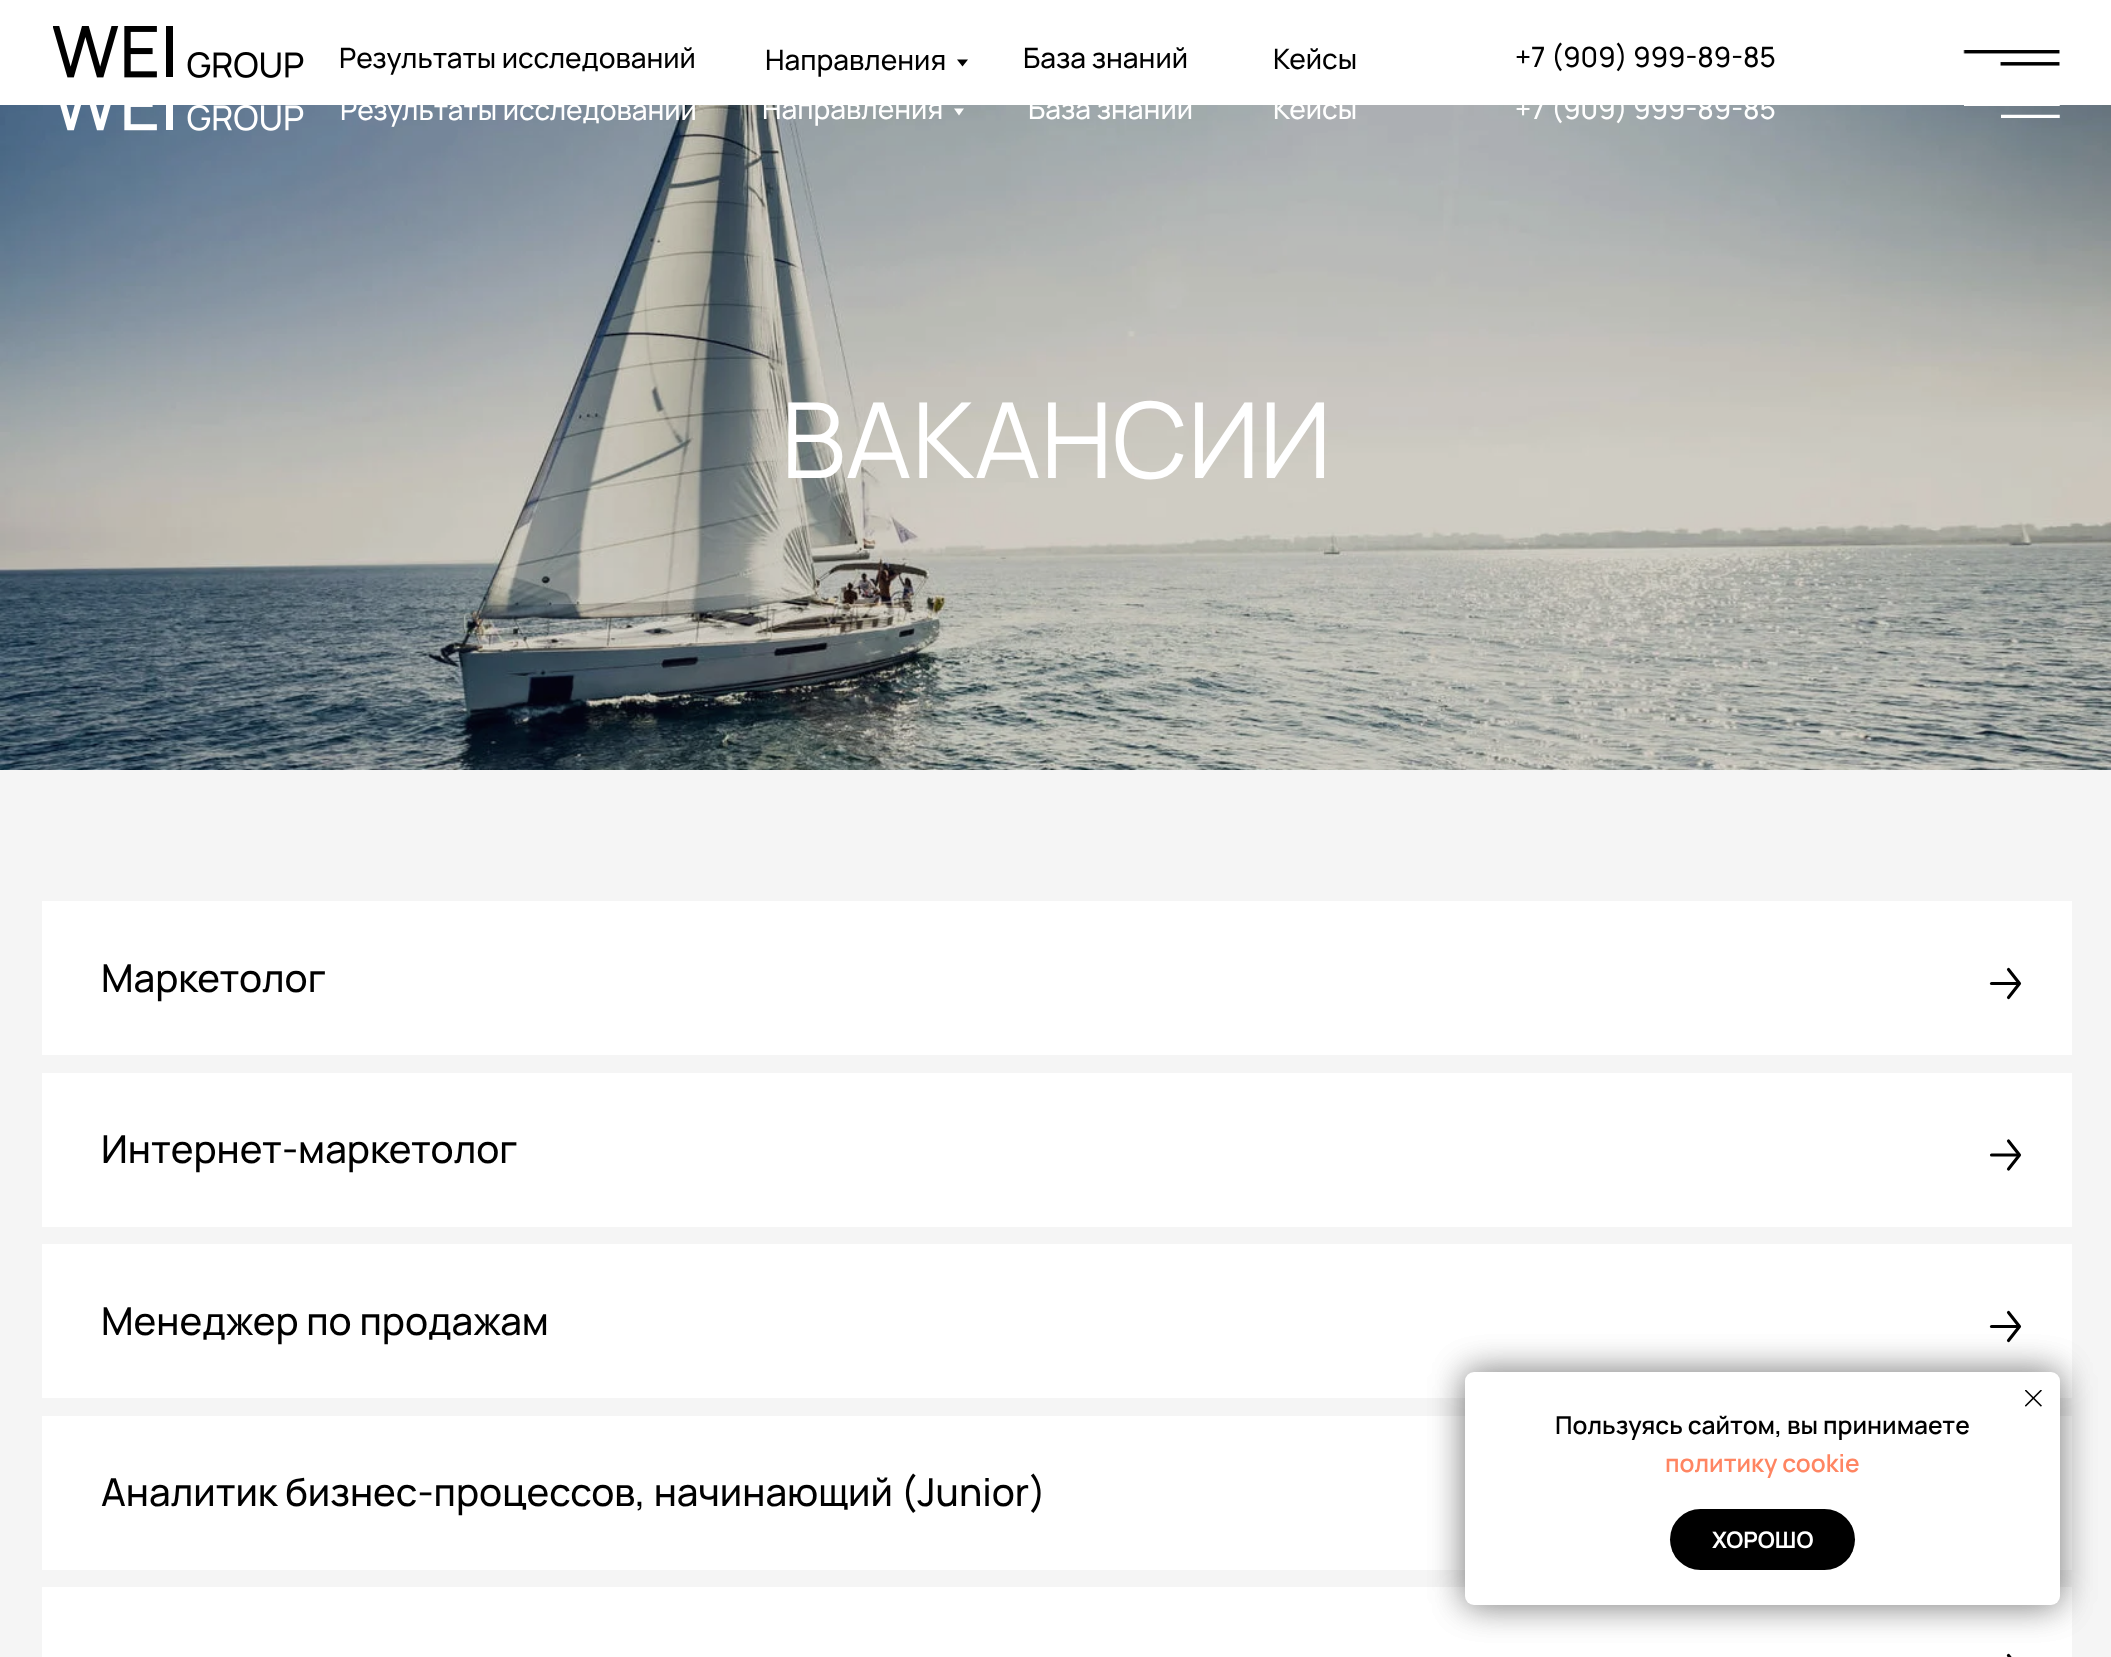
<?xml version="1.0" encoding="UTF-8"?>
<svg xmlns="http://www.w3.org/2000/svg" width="2111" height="1657">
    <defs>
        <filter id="blur1" x="-50%" y="-200%" width="200%" height="500%"><feGaussianBlur stdDeviation="17.5"/></filter>
    </defs>
    <rect width="100%" height="100%" fill="#FFFFFF"/>
    <image x="53" y="26" width="251" height="52" href="img_01.png"/>
    <text x="339" y="68" font-family="Manrope" font-size="28" font-weight="500" fill="#000000">Результаты исследований</text>
    <text x="765" y="70" font-family="Manrope" font-size="28" font-weight="500" fill="#000000">Направления</text>
    <path d="M 957 59.5 H 968 L 962.5 66.5 Z" fill="#000000"/>
    <text x="1023" y="68" font-family="Manrope" font-size="28" font-weight="500" fill="#000000">База знаний</text>
    <text x="1273" y="69" font-family="Manrope" font-size="28" font-weight="500" fill="#000000">Кейсы</text>
    <text x="1515" y="67" font-family="Manrope" font-size="28" font-weight="500" fill="#000000">+7 (909) 999-89-85</text>
    <image x="1963" y="50" width="97" height="16" href="img_02.png"/>
    <image x="0" y="105" width="2111" height="665" href="img_05.png"/>
    <image x="60" y="105" width="244" height="26" href="img_03.png"/>
    <text x="340" y="120" font-family="Manrope" font-size="28" font-weight="500" fill="#FFFFFF">Результаты исследований</text>
    <text x="762" y="119" font-family="Manrope" font-size="28" font-weight="500" fill="#FFFFFF">Направления</text>
    <path d="M 954 108.5 H 964 L 959 115.5 Z" fill="#FFFFFF"/>
    <text x="1028" y="119" font-family="Manrope" font-size="28" font-weight="500" fill="#FFFFFF">База знаний</text>
    <text x="1273" y="119" font-family="Manrope" font-size="28" font-weight="500" fill="#FFFFFF">Кейсы</text>
    <text x="1515" y="119" font-family="Manrope" font-size="28" font-weight="500" fill="#FFFFFF">+7 (909) 999-89-85</text>
    <image x="1964" y="105" width="96" height="13" href="img_04.png"/>
    <rect x="0" y="770" width="2111" height="887" fill="#F5F5F5"/>
    <rect x="42" y="1244" width="2030" height="154" fill="#FFFFFF"/>
    <path d="M 2008.5 1312.5 L 2019.5 1326.5 L 2008.5 1340.5" fill="none" stroke="#000000" stroke-width="3.1" stroke-linecap="round" stroke-linejoin="round"/>
    <path d="M 2018 1326.5 H 1991.5" fill="none" stroke="#000000" stroke-width="3.1" stroke-linecap="round"/>
    <rect x="42" y="1416" width="2030" height="154" fill="#FFFFFF"/>
    <rect x="42" y="1587" width="2030" height="70" fill="#FFFFFF"/>
    <path d="M 2008.5 1655.5 L 2019.5 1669.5 L 2008.5 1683.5" fill="none" stroke="#000000" stroke-width="3.1" stroke-linecap="round" stroke-linejoin="round"/>
    <rect x="1465" y="1372" width="595" height="233" rx="9" fill="#000000" fill-opacity="0.3" filter="url(#blur1)"/>
    <text x="781" y="478" font-family="Manrope" font-size="105" fill="#FFFFFF">ВАКАНСИИ</text>
    <rect x="42" y="901" width="2030" height="154" fill="#FFFFFF"/>
    <text x="101" y="992" font-family="Manrope" font-size="38.5" font-weight="500" fill="#000000">Маркетолог</text>
    <path d="M 2008.5 969.5 L 2019.5 983.5 L 2008.5 997.5" fill="none" stroke="#000000" stroke-width="3.1" stroke-linecap="round" stroke-linejoin="round"/>
    <path d="M 2018 983.5 H 1991.5" fill="none" stroke="#000000" stroke-width="3.1" stroke-linecap="round"/>
    <rect x="42" y="1073" width="2030" height="154" fill="#FFFFFF"/>
    <text x="101" y="1163" font-family="Manrope" font-size="38.5" font-weight="500" fill="#000000">Интернет-маркетолог</text>
    <path d="M 2008.5 1141 L 2019.5 1155 L 2008.5 1169" fill="none" stroke="#000000" stroke-width="3.1" stroke-linecap="round" stroke-linejoin="round"/>
    <path d="M 2018 1155 H 1991.5" fill="none" stroke="#000000" stroke-width="3.1" stroke-linecap="round"/>
    <text x="101" y="1335" font-family="Manrope" font-size="38.5" font-weight="500" fill="#000000">Менеджер по продажам</text>
    <text x="101" y="1506" font-family="Manrope" font-size="38.5" font-weight="500" fill="#000000">Аналитик бизнес-процессов, начинающий (Junior)</text>
    <rect x="1465" y="1372" width="595" height="233" rx="9" fill="#000000" fill-opacity="0.3" filter="url(#blur1)"/>
    <rect x="1465" y="1372" width="595" height="233" rx="9" fill="#FFFFFF"/>
    <image x="2025" y="1390" width="17" height="17" href="img_06.png"/>
    <text x="1555" y="1434" font-family="Manrope" font-size="24.5" font-weight="600" fill="#000000">Пользуясь сайтом, вы принимаете</text>
    <text x="1665" y="1472" font-family="Manrope" font-size="24.5" font-weight="600" fill="#FF8562">политику cookie</text>
    <rect x="1670" y="1509" width="185" height="61" rx="30.5" fill="#000000"/>
    <text x="1712" y="1548" font-family="Manrope" font-size="22.75" font-weight="700" fill="#FFFFFF">ХОРОШО</text>
</svg>
